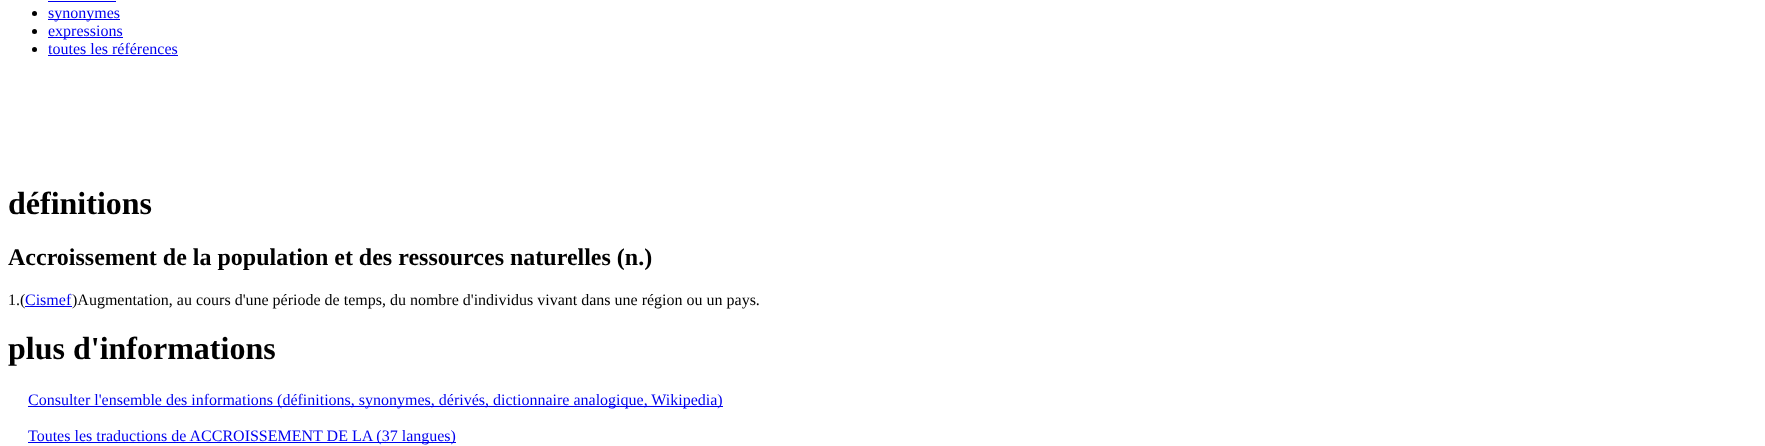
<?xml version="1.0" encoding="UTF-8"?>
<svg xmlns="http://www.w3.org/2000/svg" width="1765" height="446">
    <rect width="100%" height="100%" fill="#FFFFFF"/>
    <rect x="48" y="1" width="68" height="1" fill="#0000EE"/>
    <circle cx="34.5" cy="13.5" r="2.5" fill="#000000"/>
    <rect x="48" y="19" width="72" height="1" fill="#0000EE"/>
    <text x="48" y="18" font-family="Liberation Serif" font-size="16" fill="#0000EE">synonymes</text>
    <circle cx="34.5" cy="31.5" r="2.5" fill="#000000"/>
    <rect x="48" y="37" width="75" height="1" fill="#0000EE"/>
    <text x="48" y="36" font-family="Liberation Serif" font-size="16" fill="#0000EE">expressions</text>
    <circle cx="34.5" cy="49.5" r="2.5" fill="#000000"/>
    <text x="48" y="54" font-family="Liberation Serif" font-size="16" fill="#0000EE">toutes les références</text>
    <rect x="48" y="55" width="130" height="1" fill="#0000EE"/>
    <text x="8" y="214" font-family="Liberation Serif" font-size="32" font-weight="700" fill="#000000">définitions</text>
    <text x="8" y="265" font-family="Liberation Serif" font-size="24" font-weight="700" fill="#000000">Accroissement de la population et des ressources naturelles (n.)</text>
    <text x="8" y="305" font-family="Liberation Serif" font-size="16" fill="#000000">1.(</text>
    <text x="25" y="305" font-family="Liberation Serif" font-size="16" fill="#0000EE">Cismef</text>
    <text x="72" y="305" font-family="Liberation Serif" font-size="16" fill="#000000">)Augmentation, au cours d'une période de temps, du nombre d'individus vivant dans une région ou un pays.</text>
    <rect x="25" y="306" width="47" height="1" fill="#0000EE"/>
    <text x="8" y="359" font-family="Liberation Serif" font-size="32" font-weight="700" fill="#000000">plus d'informations</text>
    <rect x="28" y="406" width="695" height="1" fill="#0000EE"/>
    <text x="28" y="405" font-family="Liberation Serif" font-size="16" fill="#0000EE">Consulter l'ensemble des informations (définitions, synonymes, dérivés, dictionnaire analogique, Wikipedia)</text>
    <rect x="28" y="442" width="428" height="1" fill="#0000EE"/>
    <text x="28" y="441" font-family="Liberation Serif" font-size="16" fill="#0000EE">Toutes les traductions de ACCROISSEMENT DE LA (37 langues)</text>
</svg>
